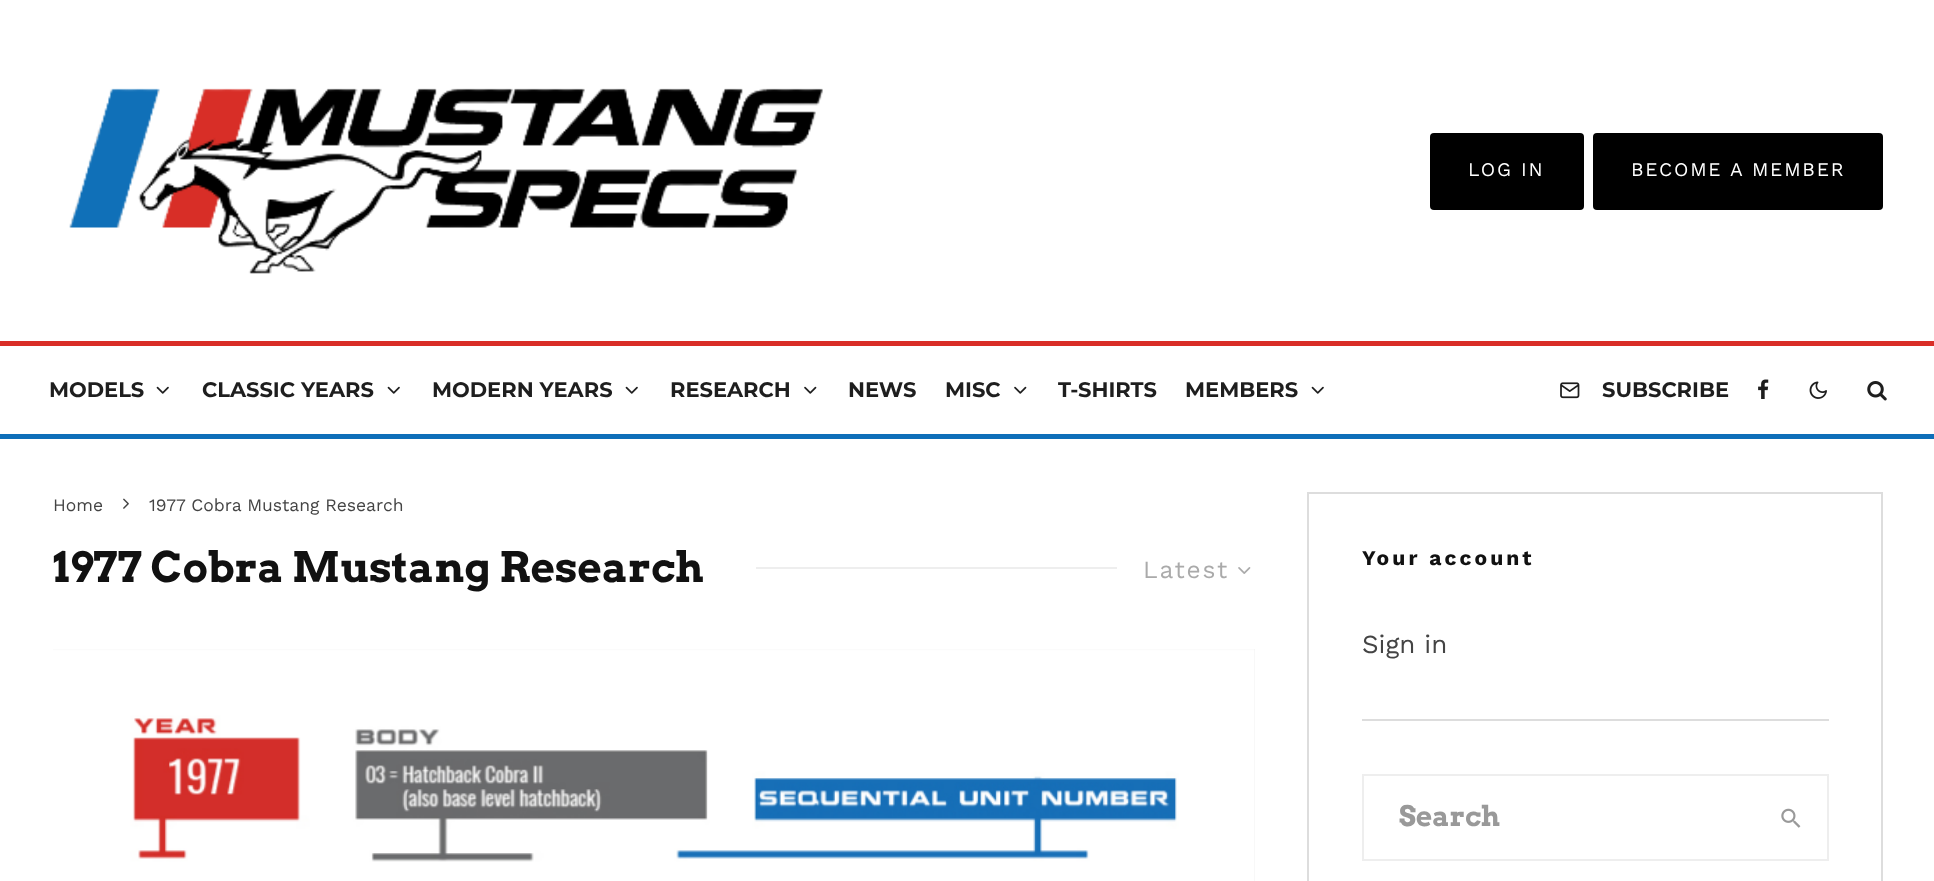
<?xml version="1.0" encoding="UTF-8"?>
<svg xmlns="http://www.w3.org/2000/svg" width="1934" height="881">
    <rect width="100%" height="100%" fill="#FFFFFF"/>
    <image x="69" y="88" width="754" height="186" href="img_01.png"/>
    <rect x="1430" y="133" width="154" height="77" rx="4" fill="#000000"/>
    <text x="1468" y="176" font-family="Work Sans" font-size="19.25" letter-spacing="1.75" fill="#FFFFFF">LOG IN</text>
    <rect x="1593" y="133" width="290" height="77" rx="4" fill="#000000"/>
    <text x="1631" y="176" font-family="Work Sans" font-size="19.25" letter-spacing="1.75" fill="#FFFFFF">BECOME A MEMBER</text>
    <rect x="0" y="341" width="1934" height="5" fill="#D92E27"/>
    <rect x="0" y="434" width="1934" height="5" fill="#0E6FB9"/>
    <text x="49" y="397" font-family="Montserrat" font-size="21" font-weight="700" fill="#1E1E1E">MODELS</text>
    <image x="156" y="386" width="13" height="8" href="img_02.png"/>
    <text x="202" y="397" font-family="Montserrat" font-size="21" font-weight="700" fill="#1E1E1E">CLASSIC YEARS</text>
    <image x="387" y="386" width="13" height="8" href="img_02.png"/>
    <text x="432" y="397" font-family="Montserrat" font-size="21" font-weight="700" fill="#1E1E1E">MODERN YEARS</text>
    <image x="625" y="386" width="13" height="8" href="img_02.png"/>
    <text x="670" y="397" font-family="Montserrat" font-size="21" font-weight="700" fill="#1E1E1E">RESEARCH</text>
    <image x="804" y="386" width="13" height="8" href="img_03.png"/>
    <text x="848" y="397" font-family="Montserrat" font-size="21" font-weight="700" fill="#1E1E1E">NEWS</text>
    <text x="945" y="397" font-family="Montserrat" font-size="21" font-weight="700" fill="#1E1E1E">MISC</text>
    <image x="1014" y="386" width="13" height="8" href="img_03.png"/>
    <text x="1058" y="397" font-family="Montserrat" font-size="21" font-weight="700" fill="#1E1E1E">T-SHIRTS</text>
    <text x="1185" y="397" font-family="Montserrat" font-size="21" font-weight="700" fill="#1E1E1E">MEMBERS</text>
    <image x="1311" y="386" width="13" height="8" href="img_02.png"/>
    <image x="1560" y="382" width="20" height="17" href="img_04.png"/>
    <text x="1602" y="397" font-family="Montserrat" font-size="21" font-weight="700" fill="#1E1E1E">SUBSCRIBE</text>
    <image x="1758" y="379" width="11" height="20" href="img_05.png"/>
    <image x="1809" y="381" width="18" height="18" href="img_06.png"/>
    <image x="1867" y="381" width="20" height="20" href="img_07.png"/>
    <text x="53" y="511" font-family="Work Sans" font-size="17.5" fill="#444444">Home</text>
    <image x="123" y="498" width="6" height="11" href="img_08.png"/>
    <text x="149" y="511" font-family="Work Sans" font-size="17.5" fill="#444444">1977 Cobra Mustang Research</text>
    <text x="53" y="582" font-family="Arvo" font-size="42" font-weight="700" fill="#111111">1977 Cobra Mustang Research</text>
    <rect x="756" y="567" width="361" height="2" fill="#EEEEEE"/>
    <text x="1143" y="578" font-family="Work Sans" font-size="24.5" letter-spacing="1.75" fill="#AAAAAA">Latest</text>
    <image x="1238" y="567" width="13" height="7" href="img_09.png"/>
    <rect x="53" y="649" width="1202" height="232" fill="#EEEEEE"/>
    <image x="53" y="649" width="1202" height="232" href="img_10.png"/>
    <rect x="1308" y="493" width="574" height="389" fill="none" stroke="#DDDDDD" stroke-width="2"/>
    <rect x="1362" y="719" width="467" height="2" fill="#DDDDDD"/>
    <text x="1362" y="565" font-family="Work Sans" font-size="21" font-weight="700" letter-spacing="3.1" fill="#111111">Your account</text>
    <text x="1362" y="653" font-family="Work Sans" font-size="26" fill="#444444">Sign in</text>
    <rect x="1363" y="775" width="465" height="85" fill="none" stroke="#EEEEEE" stroke-width="2"/>
    <text x="1399" y="826" font-family="Arvo" font-size="28" font-weight="700" fill="#999999">Search</text>
    <image x="1781" y="808" width="20" height="20" href="img_11.png"/>
</svg>
